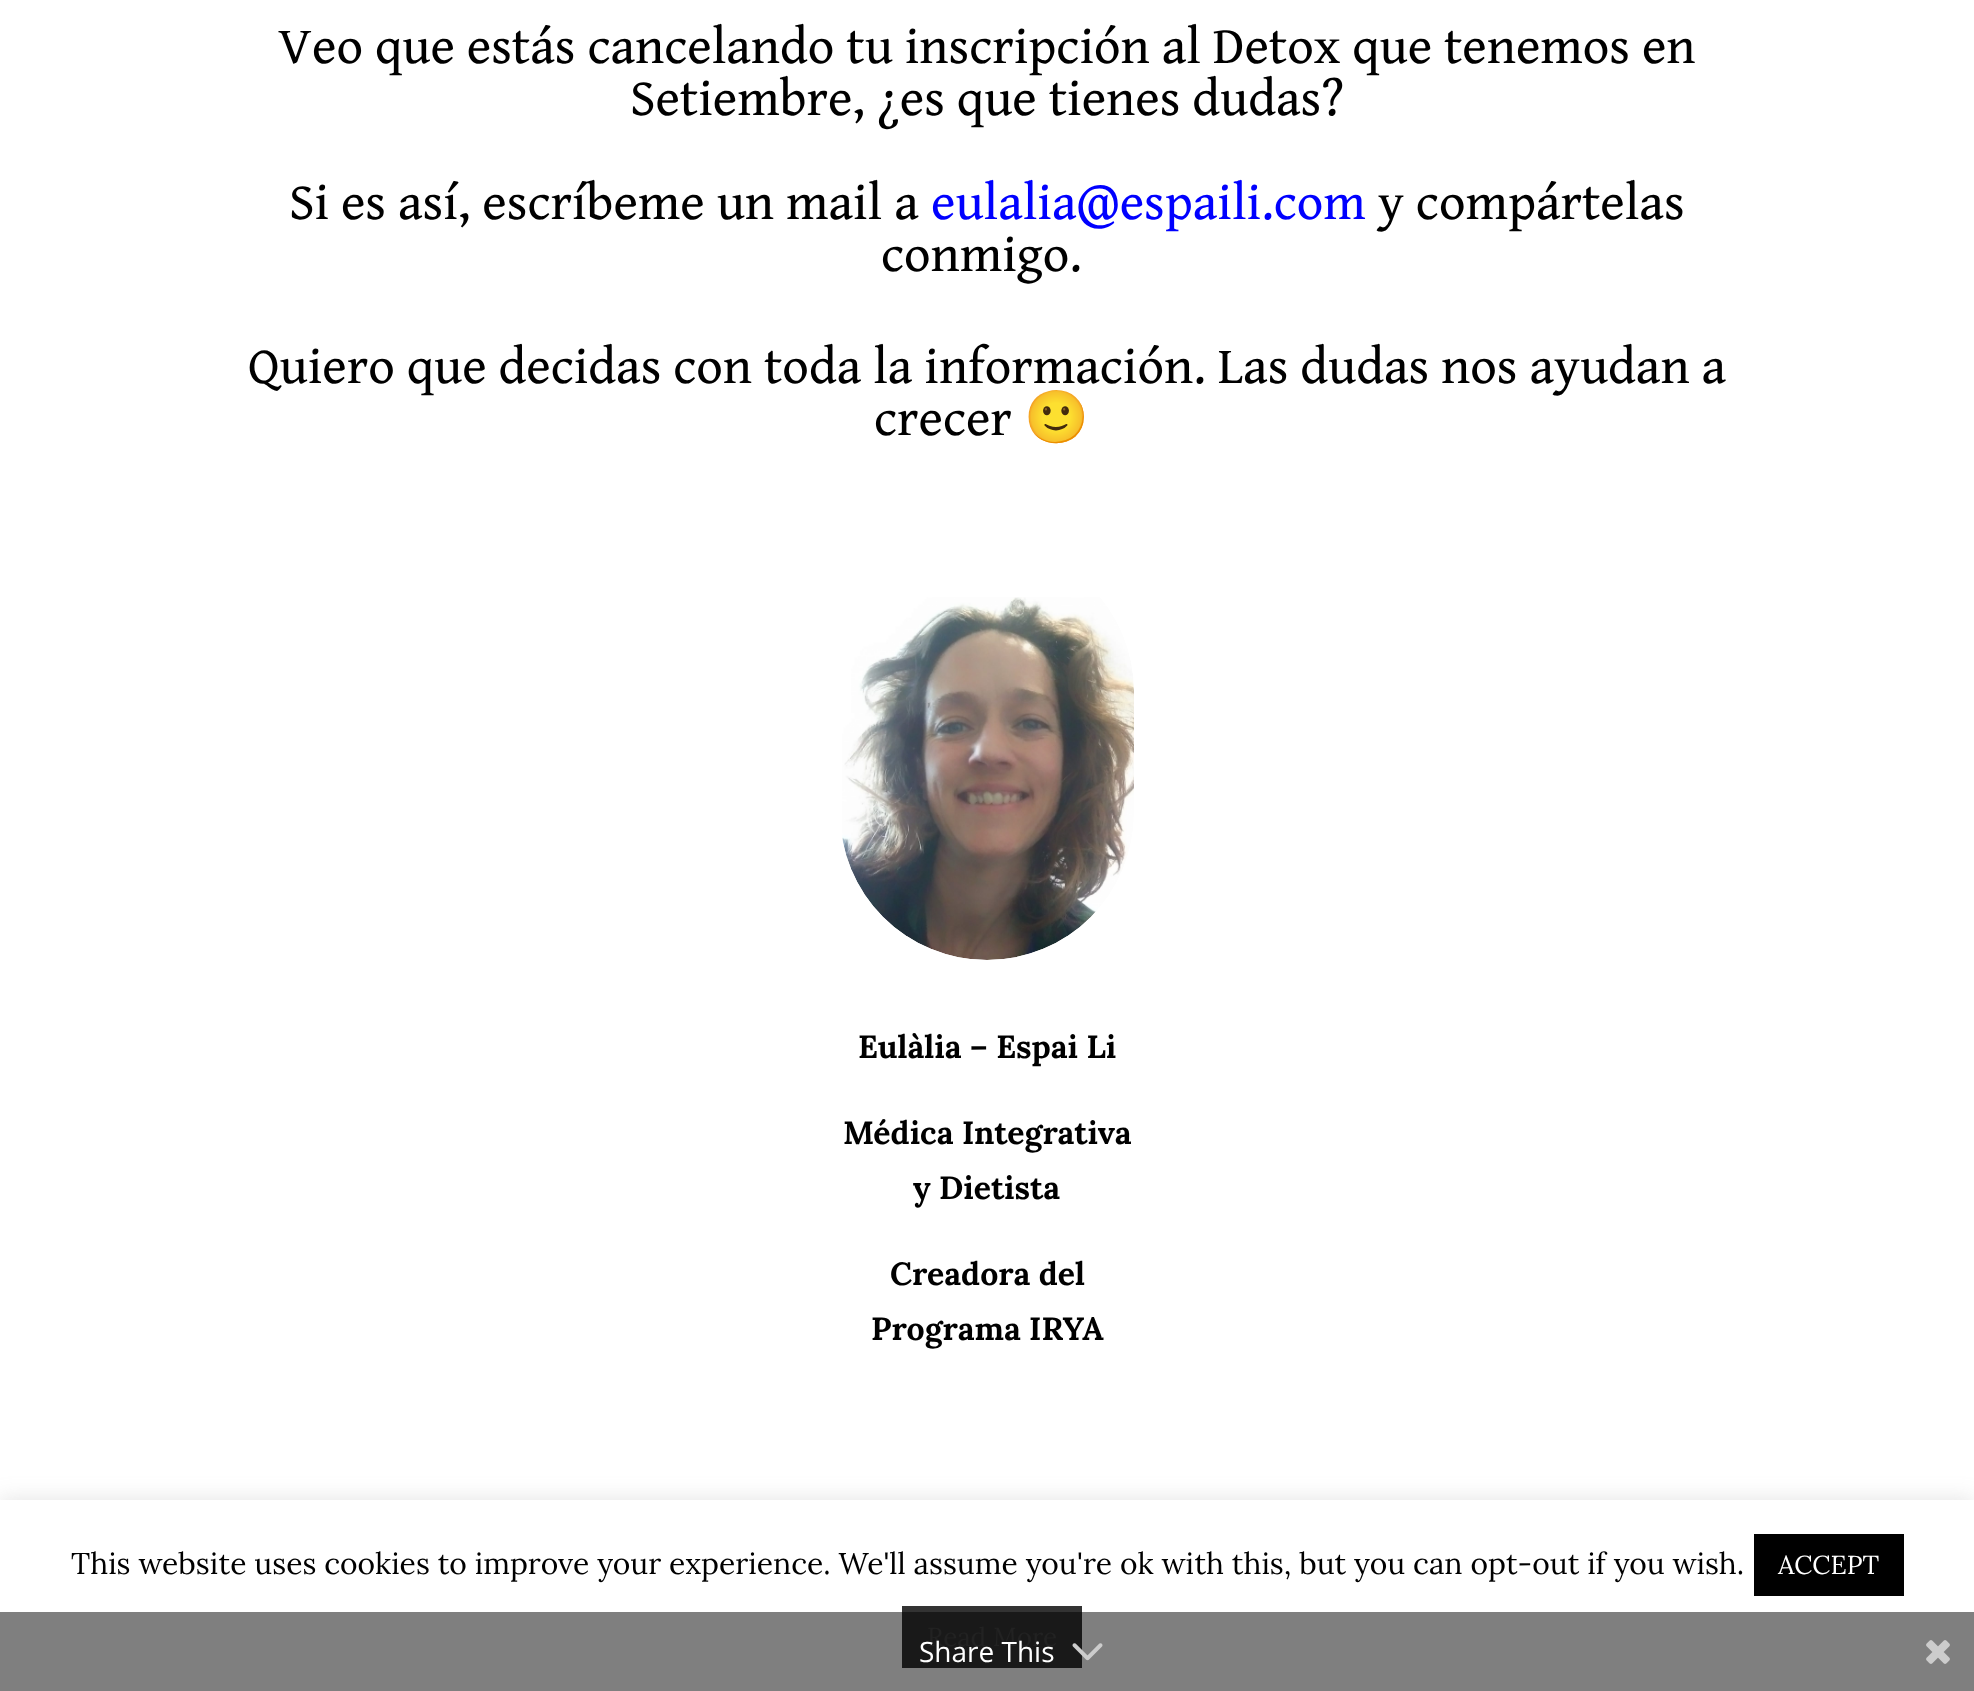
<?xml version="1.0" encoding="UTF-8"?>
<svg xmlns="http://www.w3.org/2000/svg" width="1974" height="1691">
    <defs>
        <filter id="blur1" x="-50%" y="-200%" width="200%" height="500%"><feGaussianBlur stdDeviation="10"/></filter>
    </defs>
    <rect width="100%" height="100%" fill="#FFFFFF"/>
    <text x="278" y="63" font-family="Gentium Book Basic" font-size="52" fill="#000000">Veo que estás cancelando tu inscripción al Detox que tenemos en</text>
    <text x="630" y="115" font-family="Gentium Book Basic" font-size="52" fill="#000000">Setiembre, ¿es que tienes dudas?</text>
    <text x="289" y="219" font-family="Gentium Book Basic" font-size="52" fill="#000000">Si es así, escríbeme un mail a</text>
    <text x="931" y="219" font-family="Gentium Book Basic" font-size="52" fill="#0000FF">eulalia@espaili.com</text>
    <text x="1378" y="219" font-family="Gentium Book Basic" font-size="52" fill="#000000">y compártelas</text>
    <text x="881" y="271" font-family="Gentium Book Basic" font-size="52" fill="#000000">conmigo.</text>
    <text x="248" y="383" font-family="Gentium Book Basic" font-size="52" fill="#000000">Quiero que decidas con toda la información. Las dudas nos ayudan a</text>
    <text x="874" y="435" font-family="Gentium Book Basic" font-size="52" fill="#000000">crecer</text>
    <text x="1024" y="435" font-family="Noto Color Emoji" font-size="52" fill="#000000">🙂</text>
    <image x="842" y="597" width="292" height="363" href="img_01.png"/>
    <text x="858" y="1058" font-family="Lora" font-size="32" font-weight="700" fill="#000000">Eulàlia – Espai Li</text>
    <text x="843" y="1144" font-family="Lora" font-size="32" font-weight="700" fill="#000000">Médica Integrativa</text>
    <text x="913" y="1199" font-family="Lora" font-size="32" font-weight="700" fill="#000000">y Dietista</text>
    <text x="890" y="1285" font-family="Lora" font-size="32" font-weight="700" fill="#000000">Creadora del</text>
    <text x="871" y="1340" font-family="Lora" font-size="32" font-weight="700" fill="#000000">Programa IRYA</text>
    <rect x="0" y="1498" width="1974" height="192" fill="#ACABAB" fill-opacity="0.3" filter="url(#blur1)"/>
    <rect x="0" y="1500" width="1974" height="191" fill="#FFFFFF"/>
    <text x="71" y="1574" font-family="Lora" font-size="30" fill="#000000">This website uses cookies to improve your experience. We'll assume you're ok with this, but you can opt-out if you wish.</text>
    <rect x="1754" y="1534" width="150" height="62" fill="#000000"/>
    <text x="1778" y="1574" font-family="Lora" font-size="26" fill="#FFFFFF">ACCEPT</text>
    <rect x="902" y="1606" width="180" height="62" fill="#333333"/>
    <text x="927" y="1646" font-family="Lora" font-size="26" fill="#444444">Read More</text>
    <rect x="0" y="1612" width="1974" height="79" fill="#000000" fill-opacity="0.5"/>
    <text x="919" y="1662" font-family="Open Sans" font-size="28" fill="#FFFFFF">Share This</text>
    <image x="1072" y="1643" width="31" height="18" href="img_02.png"/>
    <image x="1926" y="1640" width="24" height="24" href="img_03.png"/>
</svg>
